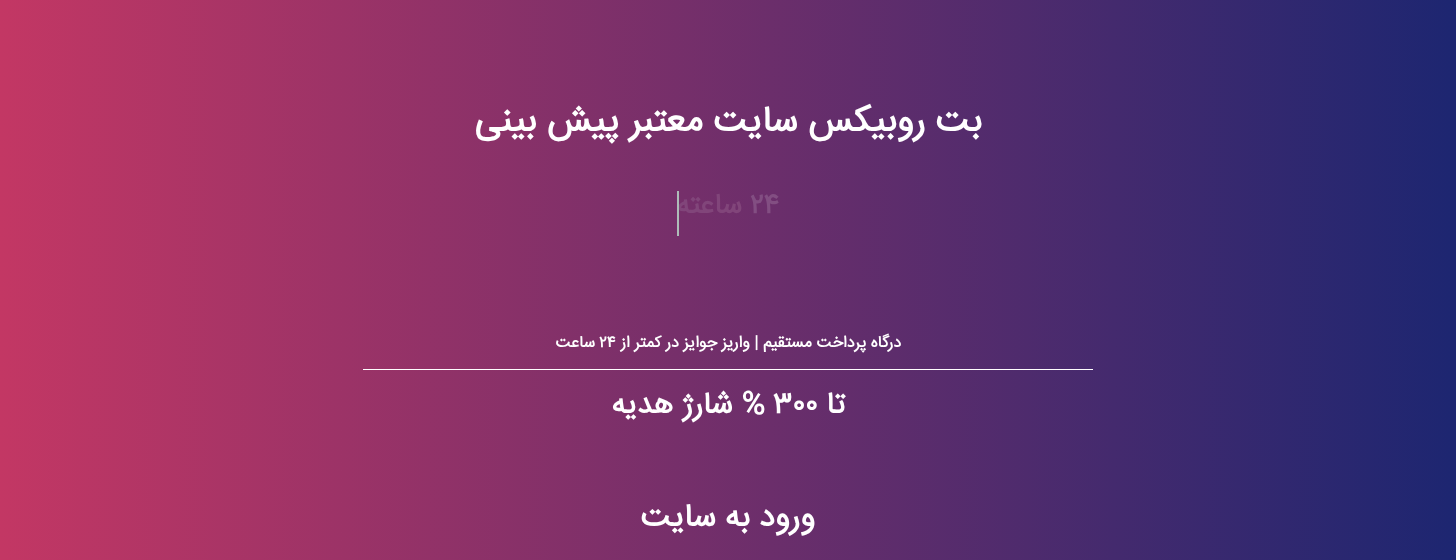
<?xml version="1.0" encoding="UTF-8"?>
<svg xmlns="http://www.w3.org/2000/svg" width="1456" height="560">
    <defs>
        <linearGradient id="g1" gradientUnits="userSpaceOnUse" x1="0" y1="280" x2="1456" y2="280"><stop offset="0" stop-color="#C33764"/><stop offset="1" stop-color="#1D2671"/></linearGradient>
    </defs>
    <rect width="100%" height="100%" fill="#FFFFFF"/>
    <rect x="0" y="0" width="1456" height="560" fill="url(#g1)"/>
    <text x="982" y="131" font-family="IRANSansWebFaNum" font-size="36" font-weight="700" direction="rtl" fill="#FFFFFF">بت روبیکس سایت معتبر پیش بینی</text>
    <text x="742" y="213" font-family="IRANSansWebFaNum" font-size="28" font-weight="700" direction="rtl" fill="#81457A">ساعته</text>
    <rect x="677" y="191" width="2" height="45" fill="#AEBCB9"/>
    <text x="750" y="213" font-family="IRANSansWebFaNum" font-size="28" font-weight="700" fill="#824E82">۲۴</text>
    <rect x="363" y="369" width="730" height="1" fill="#FFFFFF"/>
    <text x="901" y="347" font-family="IRANSansWebFaNum" font-size="16" font-weight="700" direction="rtl" fill="#FFFFFF">درگاه پرداخت مستقیم | واریز جوایز در کمتر از</text>
    <text x="599" y="347" font-family="IRANSansWebFaNum" font-size="16" font-weight="700" fill="#FFFFFF">۲۴</text>
    <text x="595" y="347" font-family="IRANSansWebFaNum" font-size="16" font-weight="700" direction="rtl" fill="#FFFFFF">ساعت</text>
    <text x="845" y="413" font-family="IRANSansWebFaNum" font-size="30" font-weight="700" direction="rtl" fill="#FFFFFF">تا</text>
    <text x="773" y="413" font-family="IRANSansWebFaNum" font-size="30" font-weight="700" fill="#FFFFFF">۳۰۰</text>
    <text x="765" y="413" font-family="IRANSansWebFaNum" font-size="30" font-weight="700" direction="rtl" fill="#FFFFFF">% شارژ هدیه</text>
    <text x="815" y="526" font-family="IRANSansWebFaNum" font-size="32" font-weight="700" direction="rtl" fill="#FFFFFF">ورود به سایت</text>
</svg>
